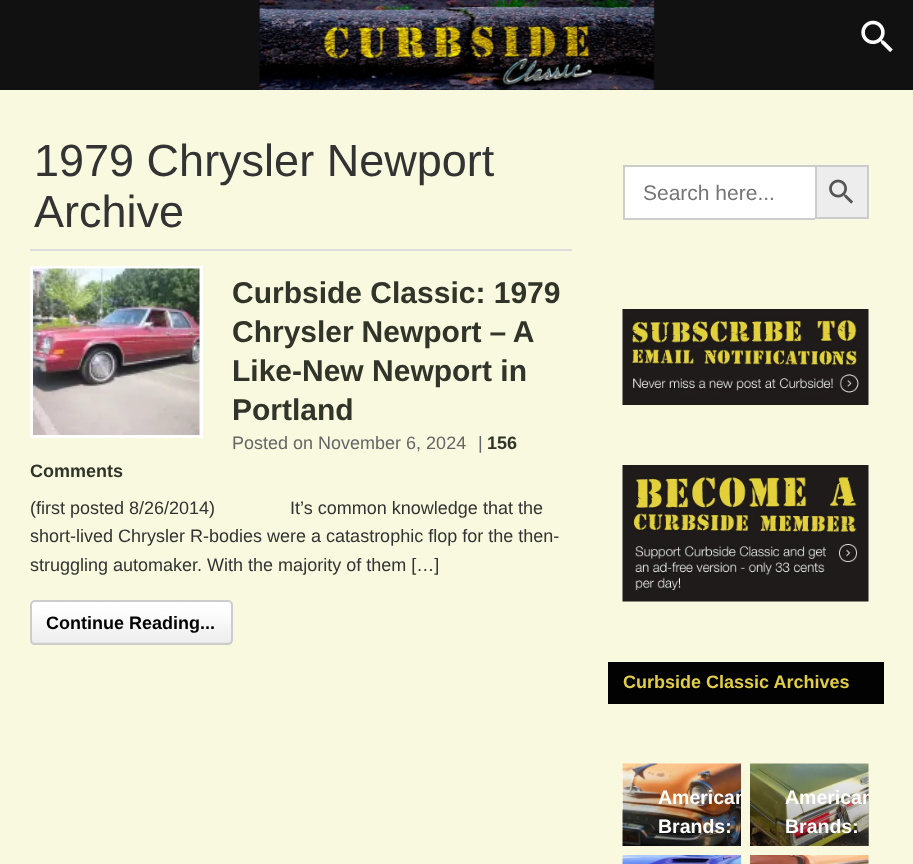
<?xml version="1.0" encoding="UTF-8"?>
<svg xmlns="http://www.w3.org/2000/svg" width="913" height="864">
    <defs>
        <clipPath id="clip1"><rect x="623" y="764" width="118" height="82"/></clipPath>
        <linearGradient id="g1" gradientUnits="userSpaceOnUse" x1="809" y1="846" x2="809" y2="764"><stop offset="0" stop-color="#000000" stop-opacity="0.4"/><stop offset="1" stop-color="#000000" stop-opacity="0"/></linearGradient>
        <clipPath id="clip2"><rect x="750" y="764" width="119" height="82"/></clipPath>
        <linearGradient id="g2" gradientUnits="userSpaceOnUse" x1="809" y1="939" x2="809" y2="855"><stop offset="0" stop-color="#000000" stop-opacity="0.4"/><stop offset="1" stop-color="#000000" stop-opacity="0"/></linearGradient>
    </defs>
    <rect width="100%" height="100%" fill="#F9F9DF"/>
    <rect x="0" y="0" width="913" height="90" fill="#111111"/>
    <image x="259" y="0" width="396" height="90" href="img_01.png"/>
    <image x="861" y="20" width="32" height="33" href="img_02.png"/>
    <rect x="30" y="249" width="542" height="2" fill="#DDDDDD"/>
    <text font-family="Liberation Sans" font-size="45" fill="#333333">
        <tspan x="34" y="176">1979 Chrysler Newport</tspan>
        <tspan x="34" y="227">Archive</tspan>
    </text>
    <rect x="30" y="266" width="173" height="172" fill="#FFFFFF"/>
    <image x="33" y="268" width="167" height="167" href="img_03.png"/>
    <text font-family="Liberation Sans" font-size="30" font-weight="700" fill="#313428">
        <tspan x="232" y="303">Curbside Classic: 1979</tspan>
        <tspan x="232" y="342" word-spacing="-0.5">Chrysler Newport – A</tspan>
        <tspan x="232" y="381">Like-New Newport in</tspan>
        <tspan x="232" y="420">Portland</tspan>
    </text>
    <text x="232" y="449" font-family="Liberation Sans" font-size="18" fill="#666666">Posted on November 6, 2024</text>
    <text x="478" y="449" font-family="Liberation Sans" font-size="18" fill="#666666">|</text>
    <text x="487" y="449" font-family="Liberation Sans" font-size="18" font-weight="700" fill="#313428">156</text>
    <text x="30" y="477" font-family="Liberation Sans" font-size="18" font-weight="700" fill="#313428">Comments</text>
    <text font-family="Liberation Sans" font-size="18" fill="#333333" xml:space="preserve"><tspan x="30" y="514">(first posted 8/26/2014)               It’s common knowledge that the</tspan><tspan x="30" y="542">short-lived Chrysler R-bodies were a catastrophic flop for the then-</tspan><tspan x="30" y="571">struggling automaker. With the majority of them […]</tspan></text>
    <image x="30" y="601" width="203" height="44" href="img_04.png"/>
    <rect x="31" y="601" width="201" height="43" rx="4" fill="none" stroke="#CCCCCC" stroke-width="2"/>
    <text x="46" y="629" font-family="Liberation Sans" font-size="18" font-weight="700" fill="#000000">Continue Reading...</text>
    <rect x="625" y="167" width="190" height="51" fill="#FFFFFF"/>
    <rect x="623" y="165" width="192" height="2" fill="#CCCCCC"/>
    <rect x="623" y="218" width="192" height="2" fill="#CCCCCC"/>
    <rect x="623" y="165" width="2" height="54" fill="#CCCCCC"/>
    <text x="643" y="200" font-family="Liberation Sans" font-size="21" fill="#757575">Search here...</text>
    <rect x="816" y="166" width="52" height="52" fill="#EDEDED" stroke="#CCCCCC" stroke-width="2"/>
    <image x="829" y="179" width="25" height="25" href="img_05.png"/>
    <image x="622" y="309" width="247" height="96" href="img_06.png"/>
    <image x="622" y="465" width="247" height="137" href="img_07.png"/>
    <rect x="608" y="662" width="276" height="42" fill="#020202"/>
    <text x="623" y="688" font-family="Liberation Sans" font-size="18" font-weight="700" fill="#E1CD48">Curbside Classic Archives</text>
    <image x="622" y="763" width="119" height="83" href="img_08.png"/>
    <g clip-path="url(#clip1)">
        <text x="658" y="804" font-family="Liberation Sans" font-size="19.5" font-weight="700" fill="#FFFFFF">American</text>
    </g>
    <text x="658" y="833" font-family="Liberation Sans" font-size="19.5" font-weight="700" fill="#FFFFFF">Brands:</text>
    <image x="750" y="763" width="119" height="83" href="img_09.png"/>
    <rect x="750" y="768" width="119" height="78" fill="url(#g1)"/>
    <g clip-path="url(#clip2)">
        <text x="785" y="804" font-family="Liberation Sans" font-size="19.5" font-weight="700" fill="#FFFFFF">American</text>
    </g>
    <text x="785" y="833" font-family="Liberation Sans" font-size="19.5" font-weight="700" fill="#FFFFFF">Brands:</text>
    <image x="622" y="855" width="119" height="9" href="img_10.png"/>
    <image x="750" y="855" width="119" height="9" href="img_11.png"/>
    <rect x="750" y="860" width="119" height="4" fill="url(#g2)"/>
</svg>
